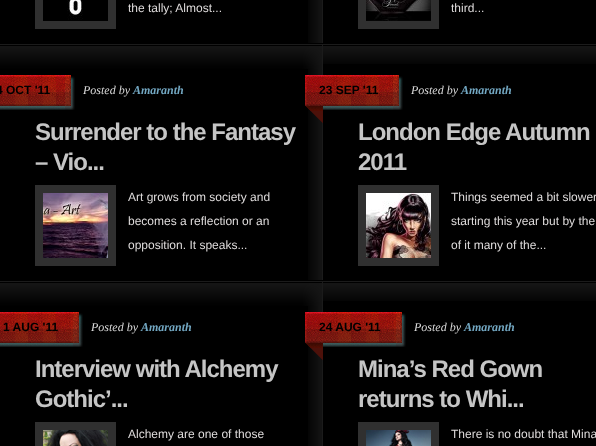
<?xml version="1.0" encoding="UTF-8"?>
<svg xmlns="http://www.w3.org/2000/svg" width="596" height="446">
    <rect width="100%" height="100%" fill="#000000"/>
    <image x="308" y="0" width="15" height="43" href="img_01.png"/>
    <image x="0" y="43" width="323" height="2" href="img_02.png"/>
    <rect x="39" y="-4" width="73" height="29" fill="none" stroke="#303030" stroke-width="8"/>
    <image x="67" y="0" width="16" height="20" href="img_03.png"/>
    <text x="128" y="12" font-family="Liberation Sans" font-size="12" fill="#DFDCDC">the tally; Almost...</text>
    <rect x="323" y="44" width="273" height="1" fill="#1B1B1B"/>
    <rect x="362" y="-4" width="73" height="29" fill="none" stroke="#303030" stroke-width="8"/>
    <image x="366" y="0" width="65" height="21" href="img_04.png"/>
    <text x="451" y="12" font-family="Liberation Sans" font-size="12" fill="#DFDCDC">third...</text>
    <image x="308" y="45" width="15" height="235" href="img_05.png"/>
    <image x="0" y="280" width="323" height="2" href="img_02.png"/>
    <image x="0" y="45" width="322" height="24" href="img_06.png"/>
    <image x="0" y="75" width="65" height="35" href="img_07.png"/>
    <image x="65" y="75" width="10" height="35" href="img_08.png"/>
    <text x="-4" y="94" font-family="Liberation Sans" font-size="12" font-weight="700" fill="#000000">4 OCT '11</text>
    <text x="83" y="94" font-family="Liberation Serif" font-size="12" font-style="italic" fill="#D9D9D9">Posted by</text>
    <text x="133" y="94" font-family="Liberation Serif" font-size="12" font-weight="700" font-style="italic" fill="#73A8C3">Amaranth</text>
    <text font-family="Liberation Sans" font-size="24" font-weight="700" letter-spacing="-1" fill="#C5C5C5">
        <tspan x="35" y="140">Surrender to the Fantasy</tspan>
        <tspan x="35" y="170">– Vio...</tspan>
    </text>
    <rect x="39" y="189" width="73" height="73" fill="none" stroke="#303030" stroke-width="8"/>
    <image x="43" y="193" width="65" height="65" href="img_09.png"/>
    <text x="128" y="201" font-family="Liberation Sans" font-size="12" fill="#DFDCDC">Art grows from society and</text>
    <text x="128" y="225" font-family="Liberation Sans" font-size="12" fill="#DFDCDC">becomes a reflection or an</text>
    <text x="128" y="249" font-family="Liberation Sans" font-size="12" fill="#DFDCDC">opposition. It speaks...</text>
    <rect x="323" y="281" width="273" height="1" fill="#1B1B1B"/>
    <image x="323" y="46" width="273" height="18" href="img_10.png"/>
    <image x="305" y="75" width="18" height="48" href="img_11.png"/>
    <image x="323" y="75" width="70" height="35" href="img_12.png"/>
    <image x="393" y="75" width="10" height="35" href="img_08.png"/>
    <text x="319" y="94" font-family="Liberation Sans" font-size="12" font-weight="700" fill="#000000">23 SEP '11</text>
    <text x="411" y="94" font-family="Liberation Serif" font-size="12" font-style="italic" fill="#D9D9D9">Posted by</text>
    <text x="461" y="94" font-family="Liberation Serif" font-size="12" font-weight="700" font-style="italic" fill="#73A8C3">Amaranth</text>
    <text font-family="Liberation Sans" font-size="24" font-weight="700" letter-spacing="-1" fill="#C5C5C5">
        <tspan x="358" y="140">London Edge Autumn</tspan>
        <tspan x="358" y="170">2011</tspan>
    </text>
    <rect x="362" y="189" width="73" height="73" fill="none" stroke="#303030" stroke-width="8"/>
    <image x="366" y="193" width="65" height="65" href="img_13.png"/>
    <text x="451" y="201" font-family="Liberation Sans" font-size="12" fill="#DFDCDC">Things seemed a bit slower</text>
    <text x="451" y="225" font-family="Liberation Sans" font-size="12" fill="#DFDCDC">starting this year but by the</text>
    <text x="451" y="249" font-family="Liberation Sans" font-size="12" fill="#DFDCDC">of it many of the...</text>
    <image x="308" y="282" width="15" height="164" href="img_14.png"/>
    <image x="0" y="282" width="322" height="24" href="img_06.png"/>
    <image x="0" y="312" width="73" height="35" href="img_15.png"/>
    <image x="73" y="312" width="10" height="35" href="img_08.png"/>
    <text x="3" y="331" font-family="Liberation Sans" font-size="12" font-weight="700" fill="#000000">1 AUG '11</text>
    <text x="91" y="331" font-family="Liberation Serif" font-size="12" font-style="italic" fill="#D9D9D9">Posted by</text>
    <text x="141" y="331" font-family="Liberation Serif" font-size="12" font-weight="700" font-style="italic" fill="#73A8C3">Amaranth</text>
    <text font-family="Liberation Sans" font-size="24" font-weight="700" letter-spacing="-1" fill="#C5C5C5">
        <tspan x="35" y="377">Interview with Alchemy</tspan>
        <tspan x="35" y="407">Gothic’...</tspan>
    </text>
    <rect x="39" y="426" width="73" height="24" fill="none" stroke="#303030" stroke-width="8"/>
    <image x="43" y="430" width="65" height="16" href="img_16.png"/>
    <text x="128" y="438" font-family="Liberation Sans" font-size="12" fill="#DFDCDC">Alchemy are one of those</text>
    <image x="323" y="283" width="273" height="18" href="img_10.png"/>
    <image x="305" y="312" width="18" height="48" href="img_11.png"/>
    <image x="323" y="312" width="73" height="35" href="img_15.png"/>
    <image x="396" y="312" width="10" height="35" href="img_08.png"/>
    <text x="319" y="331" font-family="Liberation Sans" font-size="12" font-weight="700" fill="#000000">24 AUG '11</text>
    <text x="414" y="331" font-family="Liberation Serif" font-size="12" font-style="italic" fill="#D9D9D9">Posted by</text>
    <text x="464" y="331" font-family="Liberation Serif" font-size="12" font-weight="700" font-style="italic" fill="#73A8C3">Amaranth</text>
    <text font-family="Liberation Sans" font-size="24" font-weight="700" letter-spacing="-1" fill="#C5C5C5">
        <tspan x="358" y="377">Mina’s Red Gown</tspan>
        <tspan x="358" y="407">returns to Whi...</tspan>
    </text>
    <rect x="362" y="426" width="73" height="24" fill="none" stroke="#303030" stroke-width="8"/>
    <image x="366" y="430" width="65" height="16" href="img_17.png"/>
    <text x="451" y="438" font-family="Liberation Sans" font-size="12" fill="#DFDCDC">There is no doubt that Mina</text>
</svg>
